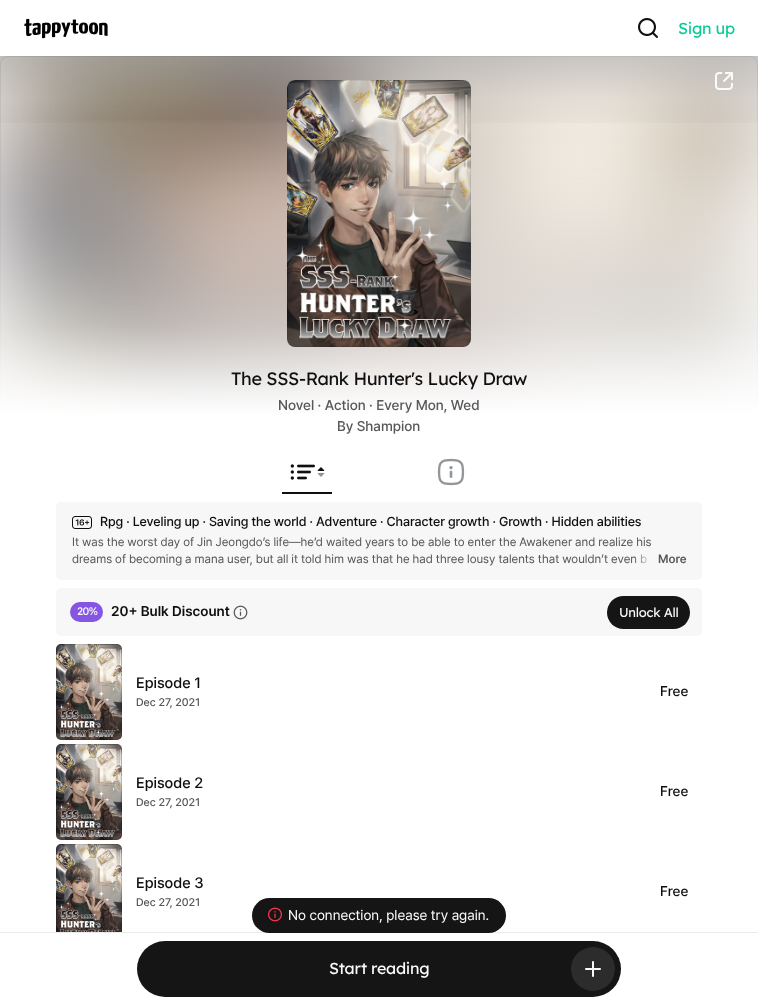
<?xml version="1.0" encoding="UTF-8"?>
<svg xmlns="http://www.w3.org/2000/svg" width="758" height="1005">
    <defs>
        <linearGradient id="g1" gradientUnits="userSpaceOnUse" x1="379" y1="112" x2="379" y2="416"><stop offset="0" stop-color="#FFFFFF" stop-opacity="0"/><stop offset="0.7" stop-color="#FFFFFF" stop-opacity="0.59"/><stop offset="1" stop-color="#FFFFFF"/></linearGradient>
        <linearGradient id="g2" gradientUnits="userSpaceOnUse" x1="379" y1="56" x2="379" y2="142"><stop offset="0" stop-color="#000000" stop-opacity="0.18"/><stop offset="0.5" stop-color="#000000" stop-opacity="0.05"/><stop offset="1" stop-color="#000000" stop-opacity="0"/></linearGradient>
        <linearGradient id="g3" gradientUnits="userSpaceOnUse" x1="633" y1="560" x2="658" y2="560"><stop offset="0" stop-color="#F7F7F8" stop-opacity="0"/><stop offset="0.8" stop-color="#F7F7F8"/><stop offset="1" stop-color="#F7F7F8"/></linearGradient>
    </defs>
    <rect width="100%" height="100%" fill="#FFFFFF"/>
    <image x="24" y="18" width="84" height="21" href="img_01.png"/>
    <image x="638" y="18" width="20" height="20" href="img_02.png"/>
    <text x="678" y="34" font-family="Lexend Deca" font-size="16" letter-spacing="-0.25" fill="#0BCC99">Sign up</text>
    <rect x="0.5" y="56.5" width="757" height="359" rx="7.5" fill="none" stroke="#E6E6E6"/>
    <image x="0" y="56" width="758" height="359" href="img_03.png"/>
    <rect x="0" y="120" width="758" height="296" fill="url(#g1)"/>
    <rect x="0" y="56" width="758" height="67" fill="url(#g2)"/>
    <rect x="287" y="80" width="184" height="267" rx="8" fill="#F5F5F5"/>
    <image x="287" y="80" width="184" height="267" href="img_04.png"/>
    <rect x="287.5" y="80.5" width="183" height="266" rx="7.5" fill="none" stroke="#000000" stroke-opacity="0.08"/>
    <image x="715" y="72" width="18" height="18" href="img_05.png"/>
    <text x="231" y="385" font-family="Lexend Deca" font-size="18" letter-spacing="-0.35" fill="#0F0F0F">The SSS-Rank Hunter's Lucky Draw</text>
    <text x="278" y="410" font-family="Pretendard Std" font-size="14" font-weight="500" fill="#565859">Novel · Action · Every Mon, Wed</text>
    <text x="337" y="431" font-family="Pretendard Std" font-size="14" font-weight="500" fill="#565859">By Shampion</text>
    <image x="290" y="464" width="25" height="16" href="img_06.png"/>
    <image x="317" y="467" width="8" height="10" href="img_07.png"/>
    <image x="437" y="458" width="28" height="28" href="img_08.png"/>
    <rect x="282" y="492" width="50" height="2" fill="#0F0F0F"/>
    <rect x="56" y="502" width="646" height="78" rx="5" fill="#F7F7F8"/>
    <image x="72" y="516" width="20" height="13" href="img_09.png"/>
    <text x="100" y="526" font-family="Pretendard Std" font-size="13" font-weight="500" letter-spacing="-0.07" fill="#0F0F0F">Rpg · Leveling up · Saving the world · Adventure · Character growth · Growth · Hidden abilities</text>
    <text font-family="Pretendard Std" font-size="12" fill="#565859">
        <tspan x="72" y="546">It was the worst day of Jin Jeongdo’s life—he’d waited years to be able to enter the Awakener and realize his</tspan>
        <tspan x="72" y="563">dreams of becoming a mana user, but all it told him was that he had three lousy talents that wouldn’t even b</tspan>
    </text>
    <rect x="634" y="554" width="13" height="10" fill="url(#g3)"/>
    <text x="658" y="563" font-family="Pretendard Std" font-size="12" font-weight="600" fill="#565859">More</text>
    <rect x="56" y="588" width="646" height="48" rx="5" fill="#F7F7F8"/>
    <rect x="70" y="602" width="33" height="20" rx="10" fill="#8556E3"/>
    <text x="77" y="615" font-family="Lexend Deca" font-size="11" letter-spacing="-0.5" fill="#FBFBFB">20%</text>
    <text x="111" y="616" font-family="Pretendard Std" font-size="14" font-weight="600" fill="#0F0F0F">20+ Bulk Discount</text>
    <image x="233" y="605" width="15" height="15" href="img_10.png"/>
    <rect x="607" y="596" width="83" height="33" rx="16.5" fill="#151515"/>
    <text x="619" y="617" font-family="Lexend Deca" font-size="13" letter-spacing="-0.25" fill="#FBFBFB">Unlock All</text>
    <image x="56" y="644" width="66" height="96" href="img_11.png"/>
    <rect x="56.5" y="644.5" width="65" height="95" rx="4.5" fill="none" stroke="#000000" stroke-opacity="0.08"/>
    <text x="136" y="688" font-family="Pretendard Std" font-size="15" font-weight="500" fill="#0F0F0F">Episode 1</text>
    <text x="136" y="706" font-family="Pretendard Std" font-size="11" font-weight="500" fill="#565859">Dec 27, 2021</text>
    <text x="660" y="696" font-family="Pretendard Std" font-size="14" font-weight="500" fill="#0F0F0F">Free</text>
    <image x="56" y="744" width="66" height="96" href="img_11.png"/>
    <rect x="56.5" y="744.5" width="65" height="95" rx="4.5" fill="none" stroke="#000000" stroke-opacity="0.08"/>
    <text x="136" y="788" font-family="Pretendard Std" font-size="15" font-weight="500" fill="#0F0F0F">Episode 2</text>
    <text x="136" y="806" font-family="Pretendard Std" font-size="11" font-weight="500" fill="#565859">Dec 27, 2021</text>
    <text x="660" y="796" font-family="Pretendard Std" font-size="14" font-weight="500" fill="#0F0F0F">Free</text>
    <image x="56" y="844" width="66" height="88" href="img_12.png"/>
    <rect x="56.5" y="844.5" width="65" height="95" rx="4.5" fill="none" stroke="#000000" stroke-opacity="0.08"/>
    <text x="136" y="888" font-family="Pretendard Std" font-size="15" font-weight="500" fill="#0F0F0F">Episode 3</text>
    <text x="136" y="906" font-family="Pretendard Std" font-size="11" font-weight="500" fill="#565859">Dec 27, 2021</text>
    <text x="660" y="896" font-family="Pretendard Std" font-size="14" font-weight="500" fill="#0F0F0F">Free</text>
    <rect x="0" y="932" width="758" height="1" fill="#EBEBEB"/>
    <rect x="252" y="898" width="254" height="35" rx="17.5" fill="#151515"/>
    <image x="268" y="907" width="14" height="15" href="img_13.png"/>
    <text x="288" y="920" font-family="Pretendard Std" font-size="14" fill="#FBFBFB">No connection, please try again.</text>
    <rect x="56" y="933" width="66" height="7" fill="#FFFFFF"/>
    <rect x="137" y="941" width="484" height="56" rx="28" fill="#151515"/>
    <text x="329" y="974" font-family="Lexend Deca" font-size="16" letter-spacing="-0.25" fill="#FBFBFB">Start reading</text>
    <circle cx="593" cy="969" r="22" fill="#2C2C2C"/>
    <image x="585" y="961" width="16" height="16" href="img_14.png"/>
</svg>
